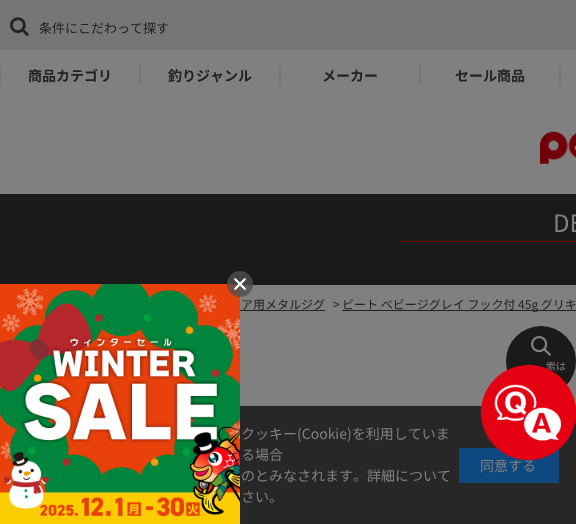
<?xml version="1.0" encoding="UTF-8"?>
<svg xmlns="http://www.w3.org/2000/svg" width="576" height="524">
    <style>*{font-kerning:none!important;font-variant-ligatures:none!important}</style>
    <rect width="100%" height="100%" fill="#808080"/>
    <rect x="0" y="0" width="576" height="50" fill="#767676"/>
    <image x="10" y="17" width="19" height="19" href="img_01.png"/>
    <text x="39" y="33" font-family="Noto Sans JP" font-size="13" fill="#222222">条件にこだわって探す</text>
    <rect x="0" y="65" width="1" height="20" fill="#767676"/>
    <text x="28" y="81" font-family="Noto Sans JP" font-size="14" font-weight="700" fill="#222222">商品カテゴリ</text>
    <rect x="139" y="65" width="2" height="20" fill="#767676"/>
    <text x="168" y="81" font-family="Noto Sans JP" font-size="14" font-weight="700" fill="#222222">釣りジャンル</text>
    <rect x="279" y="65" width="2" height="20" fill="#767676"/>
    <text x="322" y="81" font-family="Noto Sans JP" font-size="14" font-weight="700" fill="#222222">メーカー</text>
    <rect x="419" y="65" width="2" height="20" fill="#767676"/>
    <text x="455" y="81" font-family="Noto Sans JP" font-size="14" font-weight="700" fill="#222222">セール商品</text>
    <rect x="559" y="65" width="2" height="20" fill="#767676"/>
    <image x="540" y="131" width="36" height="33" href="img_02.png"/>
    <rect x="0" y="194" width="576" height="91" fill="#1A1A1A"/>
    <text x="553" y="232" font-family="Noto Sans JP" font-size="24" fill="#808080">DE</text>
    <rect x="400" y="241" width="176" height="1" fill="#730009"/>
    <text x="241" y="309" font-family="Noto Sans JP" font-size="12" fill="#222222">ア用メタルジグ</text>
    <rect x="240" y="310" width="85" height="1" fill="#222222"/>
    <text x="333" y="309" font-family="Noto Sans JP" font-size="12" fill="#222222">&gt;</text>
    <rect x="342" y="310" width="234" height="1" fill="#222222"/>
    <text x="342" y="309" font-family="Noto Sans JP" font-size="12" fill="#222222">ビート ベビージグレイ フック付 45g グリキ</text>
    <circle cx="541" cy="361" r="35" fill="#1A1A1A"/>
    <image x="531" y="336" width="20" height="20" href="img_03.png"/>
    <text x="546" y="370" font-family="Noto Sans JP" font-size="10" fill="#808080">索は</text>
    <image x="0" y="284" width="240" height="240" href="img_04.png"/>
    <circle cx="240" cy="284" r="13" fill="#505050" fill-opacity="0.8"/>
    <path d="M 245.5 278.5 C 246 278.5 246 279.5 245.5 280 L 236 289.5 C 235.5 290 234.5 290 234.5 289.5 C 234 289.5 234 288.5 234.5 288 L 244 278.5 C 244.5 278 245.5 278 245.5 278.5 Z" fill="#FFFFFF"/>
    <path d="M 234.5 278.5 C 234.5 278 235.5 278 236 278.5 L 245.5 288 C 246 288.5 246 289.5 245.5 289.5 C 245.5 290 244.5 290 244 289.5 L 234.5 280 C 234 279.5 234 278.5 234.5 278.5 Z" fill="#FFFFFF"/>
    <rect x="240" y="406" width="336" height="118" fill="#272727"/>
    <rect x="459" y="448" width="100" height="35" fill="#0F4880"/>
    <text x="480" y="471" font-family="Noto Sans JP" font-size="14" fill="#808080">同意する</text>
    <image x="480" y="364" width="96" height="96" href="img_05.png"/>
    <text font-family="Noto Sans JP" font-size="14" fill="#808080">
        <tspan x="241" y="439">クッキー(Cookie)を利用していま</tspan>
        <tspan x="241" y="460">る場合</tspan>
        <tspan x="241" y="481">のとみなされます。詳細について</tspan>
        <tspan x="241" y="502">さい。</tspan>
    </text>
</svg>
